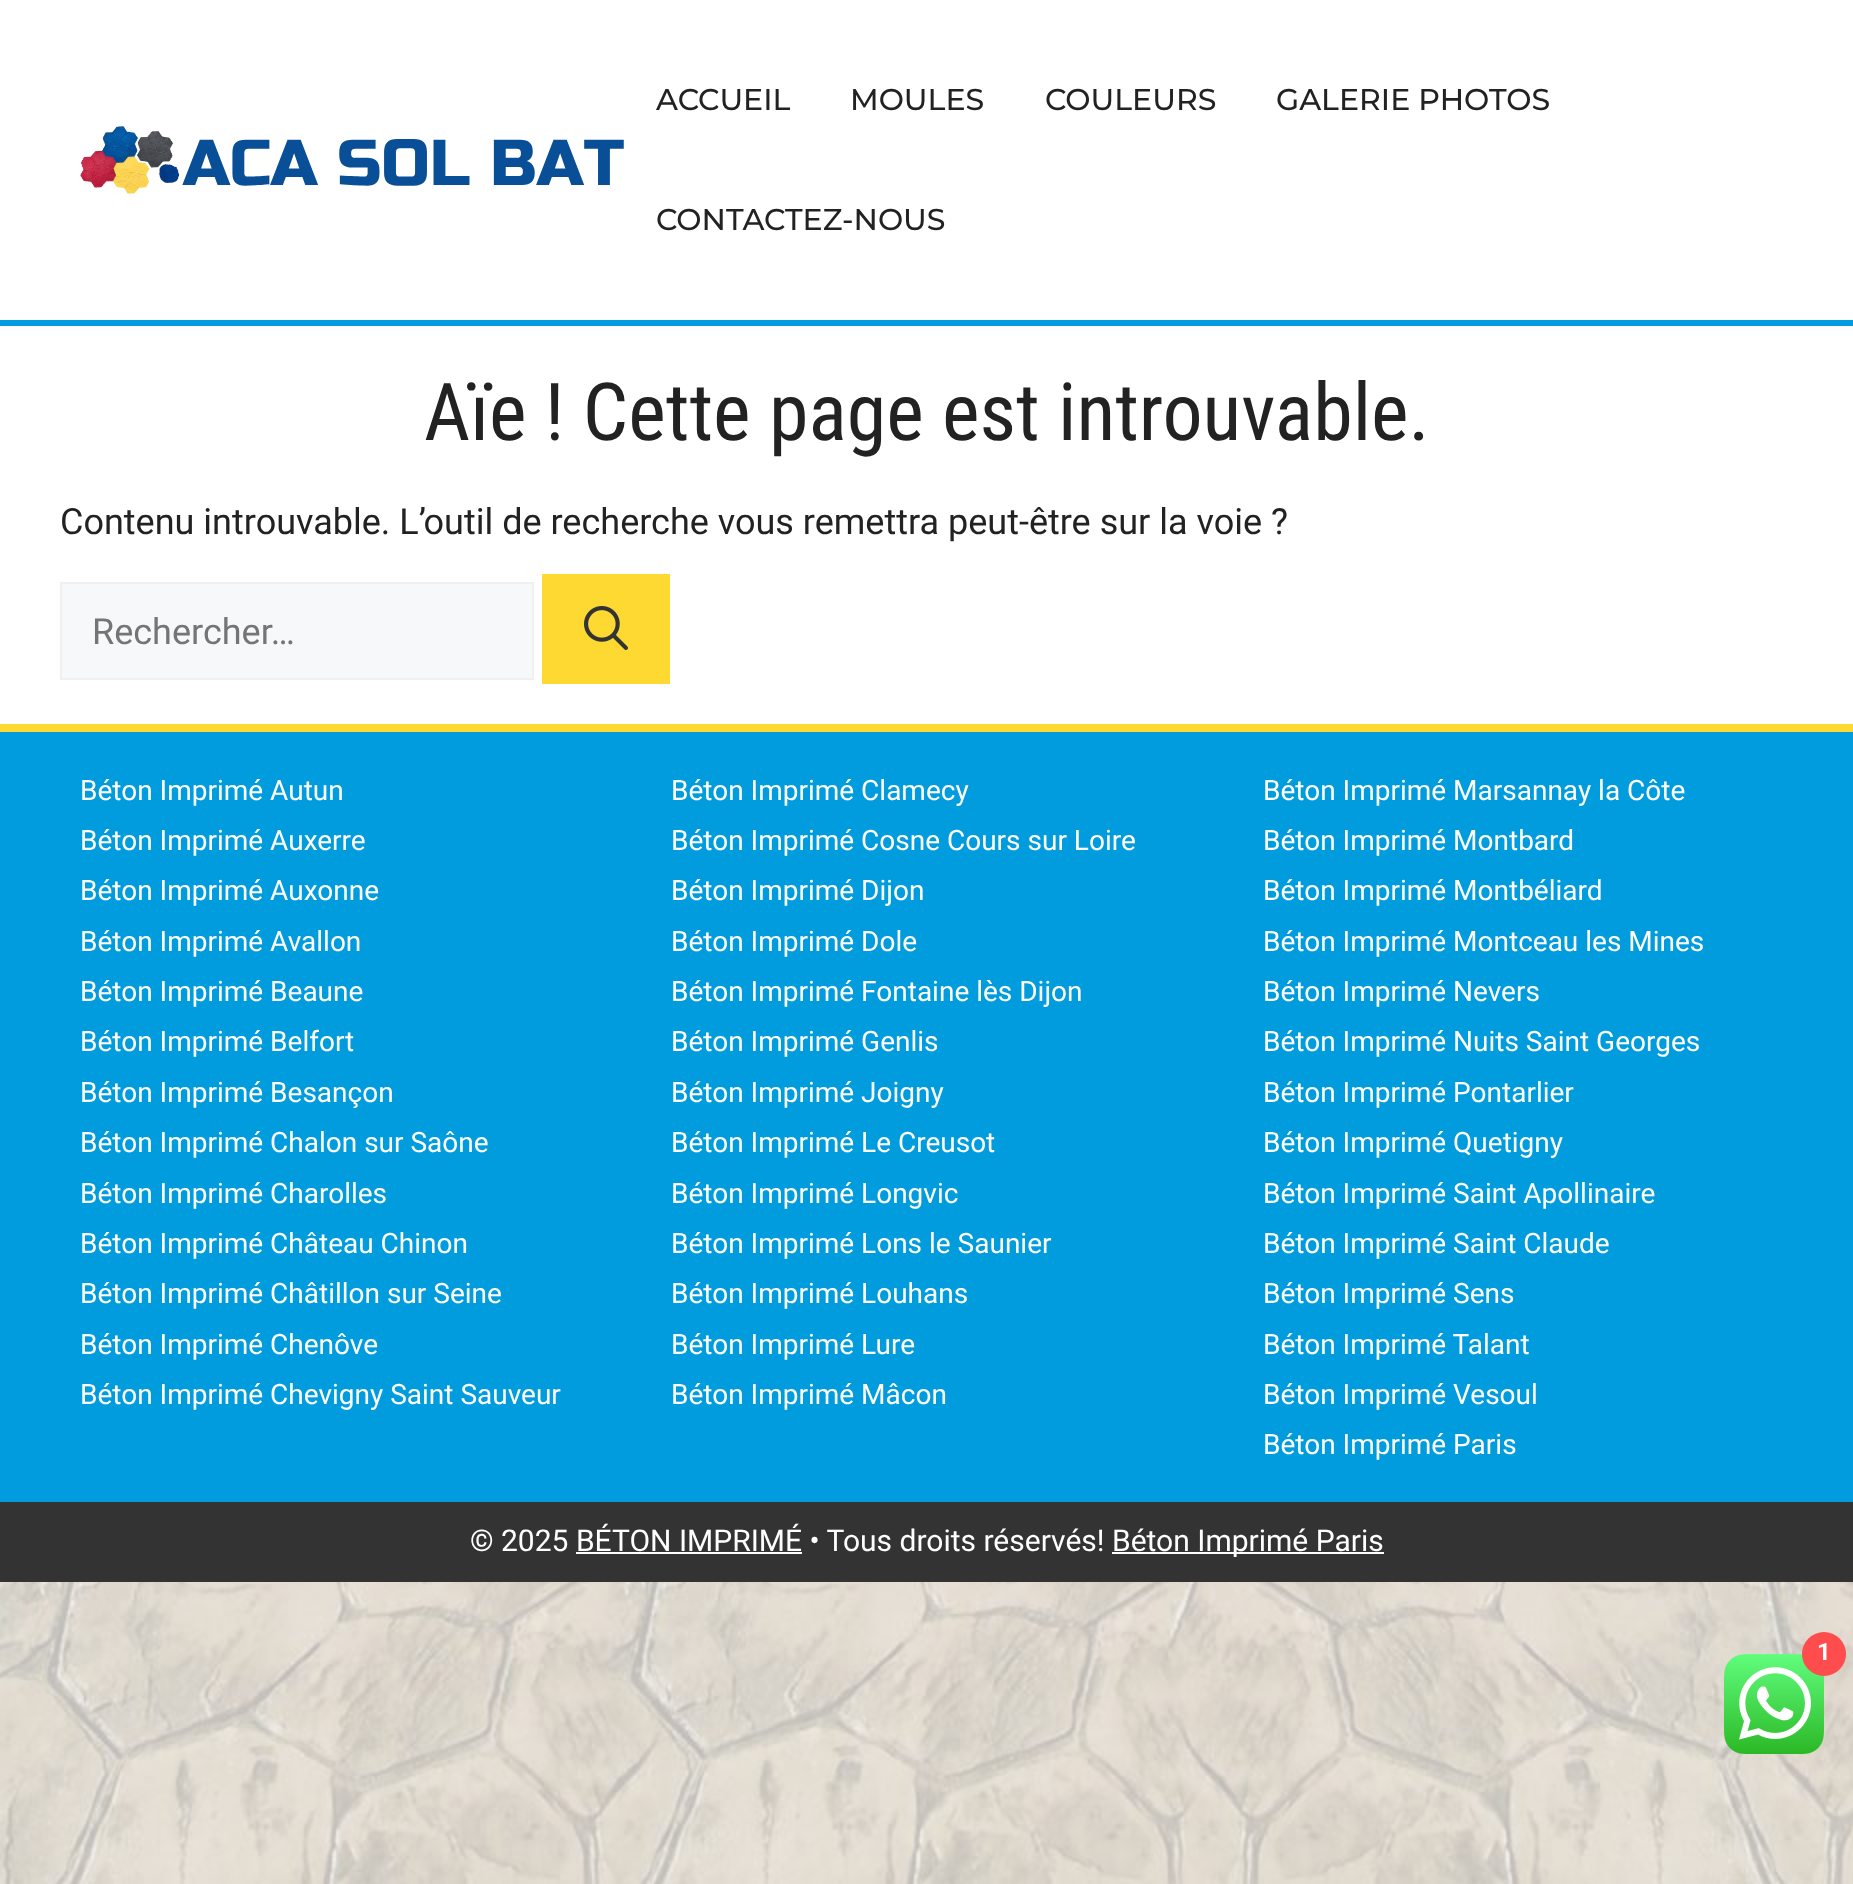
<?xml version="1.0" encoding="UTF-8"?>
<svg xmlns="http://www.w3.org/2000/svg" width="1853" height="1884">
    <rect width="100%" height="100%" fill="#FFFFFF"/>
    <image x="0" y="1582" width="1853" height="302" href="img_01.png"/>
    <rect x="0" y="320" width="1853" height="6" fill="#009CDE"/>
    <image x="80" y="126" width="544" height="68" href="img_02.png"/>
    <text x="656" y="110" font-family="Montserrat" font-size="30" font-weight="500" fill="#222222">ACCUEIL</text>
    <text x="850" y="110" font-family="Montserrat" font-size="30" font-weight="500" fill="#222222">MOULES</text>
    <text x="1045" y="110" font-family="Montserrat" font-size="30" font-weight="500" fill="#222222">COULEURS</text>
    <text x="1276" y="110" font-family="Montserrat" font-size="30" font-weight="500" fill="#222222">GALERIE PHOTOS</text>
    <text x="656" y="230" font-family="Montserrat" font-size="30" font-weight="500" fill="#222222">CONTACTEZ-NOUS</text>
    <text x="424" y="440" font-family="Roboto Condensed" font-size="80" fill="#222222">Aïe ! Cette page est introuvable.</text>
    <text x="60" y="534" font-family="Roboto" font-size="36" fill="#222222">Contenu introuvable. L’outil de recherche vous remettra peut-être sur la voie ?</text>
    <rect x="61" y="583" width="472" height="96" fill="#F7F8F9" stroke="#F0F0F0" stroke-width="2"/>
    <text x="92" y="644" font-family="Roboto" font-size="36" fill="#757575">Rechercher…</text>
    <rect x="542" y="574" width="128" height="110" fill="#FDD931"/>
    <image x="584" y="606" width="44" height="44" href="img_03.png"/>
    <rect x="0" y="724" width="1853" height="8" fill="#FDD931"/>
    <rect x="0" y="732" width="1853" height="770" fill="#009CDE"/>
    <text font-family="Roboto" font-size="28" fill="#FFFFFF">
        <tspan x="80" y="800">Béton Imprimé Autun</tspan>
        <tspan x="80" y="850">Béton Imprimé Auxerre</tspan>
        <tspan x="80" y="900">Béton Imprimé Auxonne</tspan>
        <tspan x="80" y="951">Béton Imprimé Avallon</tspan>
        <tspan x="80" y="1001">Béton Imprimé Beaune</tspan>
        <tspan x="80" y="1051">Béton Imprimé Belfort</tspan>
        <tspan x="80" y="1102">Béton Imprimé Besançon</tspan>
        <tspan x="80" y="1152">Béton Imprimé Chalon sur Saône</tspan>
        <tspan x="80" y="1203">Béton Imprimé Charolles</tspan>
        <tspan x="80" y="1253">Béton Imprimé Château Chinon</tspan>
        <tspan x="80" y="1303">Béton Imprimé Châtillon sur Seine</tspan>
        <tspan x="80" y="1354">Béton Imprimé Chenôve</tspan>
        <tspan x="80" y="1404">Béton Imprimé Chevigny Saint Sauveur</tspan>
    </text>
    <text font-family="Roboto" font-size="28" fill="#FFFFFF">
        <tspan x="671" y="800">Béton Imprimé Clamecy</tspan>
        <tspan x="671" y="850">Béton Imprimé Cosne Cours sur Loire</tspan>
        <tspan x="671" y="900">Béton Imprimé Dijon</tspan>
        <tspan x="671" y="951">Béton Imprimé Dole</tspan>
        <tspan x="671" y="1001">Béton Imprimé Fontaine lès Dijon</tspan>
        <tspan x="671" y="1051">Béton Imprimé Genlis</tspan>
        <tspan x="671" y="1102">Béton Imprimé Joigny</tspan>
        <tspan x="671" y="1152">Béton Imprimé Le Creusot</tspan>
        <tspan x="671" y="1203">Béton Imprimé Longvic</tspan>
        <tspan x="671" y="1253">Béton Imprimé Lons le Saunier</tspan>
        <tspan x="671" y="1303">Béton Imprimé Louhans</tspan>
        <tspan x="671" y="1354">Béton Imprimé Lure</tspan>
        <tspan x="671" y="1404">Béton Imprimé Mâcon</tspan>
    </text>
    <text font-family="Roboto" font-size="28" fill="#FFFFFF">
        <tspan x="1263" y="800">Béton Imprimé Marsannay la Côte</tspan>
        <tspan x="1263" y="850">Béton Imprimé Montbard</tspan>
        <tspan x="1263" y="900">Béton Imprimé Montbéliard</tspan>
        <tspan x="1263" y="951">Béton Imprimé Montceau les Mines</tspan>
        <tspan x="1263" y="1001">Béton Imprimé Nevers</tspan>
        <tspan x="1263" y="1051">Béton Imprimé Nuits Saint Georges</tspan>
        <tspan x="1263" y="1102">Béton Imprimé Pontarlier</tspan>
        <tspan x="1263" y="1152">Béton Imprimé Quetigny</tspan>
        <tspan x="1263" y="1203">Béton Imprimé Saint Apollinaire</tspan>
        <tspan x="1263" y="1253">Béton Imprimé Saint Claude</tspan>
        <tspan x="1263" y="1303">Béton Imprimé Sens</tspan>
        <tspan x="1263" y="1354">Béton Imprimé Talant</tspan>
        <tspan x="1263" y="1404">Béton Imprimé Vesoul</tspan>
        <tspan x="1263" y="1454">Béton Imprimé Paris</tspan>
    </text>
    <rect x="0" y="1502" width="1853" height="80" fill="#333333"/>
    <text x="470" y="1551" font-family="Roboto" font-size="30" fill="#FFFFFF">© 2025 BÉTON IMPRIMÉ • Tous droits réservés!</text>
    <rect x="1112" y="1552" width="272" height="2" fill="#FFFFFF"/>
    <text x="1112" y="1551" font-family="Roboto" font-size="30" fill="#FFFFFF">Béton Imprimé Paris</text>
    <rect x="576" y="1552" width="226" height="2" fill="#FFFFFF"/>
    <image x="1724" y="1654" width="100" height="100" href="img_04.png"/>
    <circle cx="1824" cy="1654" r="22" fill="#FF4C4C"/>
    <text x="1817" y="1660" font-family="Roboto" font-size="24" font-weight="700" fill="#FFFFFF">1</text>
</svg>
